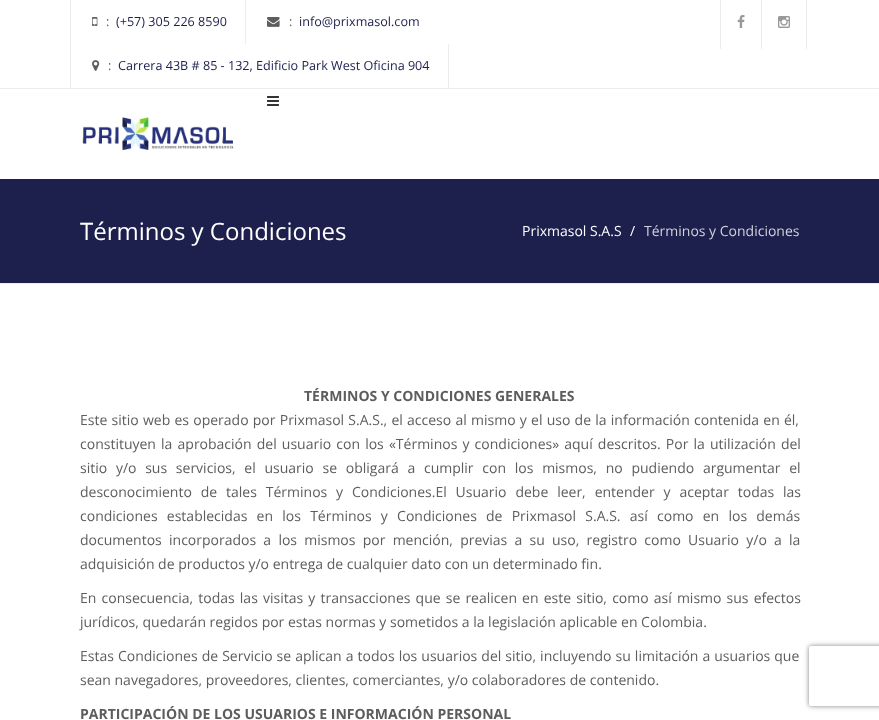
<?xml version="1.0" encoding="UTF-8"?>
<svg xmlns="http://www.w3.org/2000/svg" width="879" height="720">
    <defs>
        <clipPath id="clip1"><path d="M 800 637 H 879 V 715 H 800 Z M 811 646 H 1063 C 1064 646 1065 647 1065 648 V 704 C 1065 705 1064 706 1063 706 H 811 C 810 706 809 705 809 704 V 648 C 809 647 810 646 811 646 Z" clip-rule="evenodd"/></clipPath>
        <filter id="blur1" x="-50%" y="-200%" width="200%" height="500%"><feGaussianBlur stdDeviation="2.5"/></filter>
    </defs>
    <rect width="100%" height="100%" fill="#FFFFFF"/>
    <rect x="0" y="88" width="879" height="1" fill="#ECECEC"/>
    <rect x="70" y="0" width="1" height="88" fill="#ECECEC"/>
    <image x="92" y="17" width="6" height="9" href="img_01.png"/>
    <text x="106" y="26" font-family="Open Sans" font-size="12.6" fill="#5D5D5D">:</text>
    <text x="116" y="26" font-family="Open Sans" font-size="12.6" fill="#1D1F4C">(+57) 305 226 8590</text>
    <rect x="245" y="0" width="1" height="44" fill="#ECECEC"/>
    <image x="267" y="17" width="13" height="10" href="img_02.png"/>
    <text x="289" y="26" font-family="Open Sans" font-size="12.6" fill="#5D5D5D">:</text>
    <text x="299" y="26" font-family="Open Sans" font-size="12.6" fill="#1D1F4C">info@prixmasol.com</text>
    <rect x="448" y="44" width="1" height="44" fill="#ECECEC"/>
    <image x="92" y="60" width="8" height="11" href="img_03.png"/>
    <text x="108" y="70" font-family="Open Sans" font-size="12.6" fill="#5D5D5D">:</text>
    <text x="118" y="70" font-family="Open Sans" font-size="12.6" fill="#1D1F4C">Carrera 43B # 85 - 132, Edificio Park West Oficina 904</text>
    <rect x="720" y="0" width="1" height="49" fill="#ECECEC"/>
    <image x="737" y="15" width="8" height="13" href="img_04.png"/>
    <rect x="806" y="0" width="1" height="49" fill="#ECECEC"/>
    <rect x="761" y="0" width="1" height="49" fill="#ECECEC"/>
    <image x="778" y="16" width="12" height="12" href="img_05.png"/>
    <image x="267" y="96" width="12" height="10" href="img_06.png"/>
    <image x="82" y="117" width="152" height="34" href="img_07.png"/>
    <rect x="0" y="179" width="879" height="104" fill="#1D1F4C"/>
    <text x="80" y="240" font-family="Open Sans" font-size="24" fill="#FFFFFF">Términos y Condiciones</text>
    <text x="522" y="236" font-family="Open Sans" font-size="14" fill="#FFFFFF">Prixmasol S.A.S</text>
    <text x="630" y="236" font-family="Open Sans" font-size="14" fill="#FFFFFF">/</text>
    <text x="644" y="236" font-family="Open Sans" font-size="14" fill="#D2D2DB">Términos y Condiciones</text>
    <rect x="0" y="283" width="879" height="1" fill="#EEEEEE"/>
    <text x="304" y="401" font-family="Open Sans" font-size="14" font-weight="700" fill="#5D5D5D">TÉRMINOS Y CONDICIONES GENERALES</text>
    <text font-family="Open Sans" font-size="14" fill="#5D5D5D">
        <tspan x="80" y="425" word-spacing="0.6">Este sitio web es operado por Prixmasol S.A.S., el acceso al mismo y el uso de la información contenida en él,</tspan>
        <tspan x="80" y="449" word-spacing="1.5">constituyen la aprobación del usuario con los «Términos y condiciones» aquí descritos. Por la utilización del</tspan>
        <tspan x="80" y="473" word-spacing="5.1">sitio y/o sus servicios, el usuario se obligará a cumplir con los mismos, no pudiendo argumentar el</tspan>
        <tspan x="80" y="497" word-spacing="5.25">desconocimiento de tales Términos y Condiciones.El Usuario debe leer, entender y aceptar todas las</tspan>
        <tspan x="80" y="521" word-spacing="5.6">condiciones establecidas en los Términos y Condiciones de Prixmasol S.A.S. así como en los demás</tspan>
        <tspan x="80" y="545" word-spacing="3.6">documentos incorporados a los mismos por mención, previas a su uso, registro como Usuario y/o a la</tspan>
        <tspan x="80" y="569">adquisición de productos y/o entrega de cualquier dato con un determinado fin.</tspan>
    </text>
    <text font-family="Open Sans" font-size="14" fill="#5D5D5D">
        <tspan x="80" y="603" word-spacing="1.5">En consecuencia, todas las visitas y transacciones que se realicen en este sitio, como así mismo sus efectos</tspan>
        <tspan x="80" y="627">jurídicos, quedarán regidos por estas normas y sometidos a la legislación aplicable en Colombia.</tspan>
    </text>
    <text font-family="Open Sans" font-size="14" fill="#5D5D5D">
        <tspan x="80" y="661" word-spacing="0.4">Estas Condiciones de Servicio se aplican a todos los usuarios del sitio, incluyendo su limitación a usuarios que</tspan>
        <tspan x="80" y="685">sean navegadores, proveedores, clientes, comerciantes, y/o colaboradores de contenido.</tspan>
    </text>
    <text x="80" y="719" font-family="Open Sans" font-size="14" font-weight="700" fill="#5D5D5D">PARTICIPACIÓN DE LOS USUARIOS E INFORMACIÓN PERSONAL</text>
    <g clip-path="url(#clip1)">
        <rect x="809" y="646" width="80" height="60" rx="2" fill="#808080" filter="url(#blur1)"/>
    </g>
</svg>
